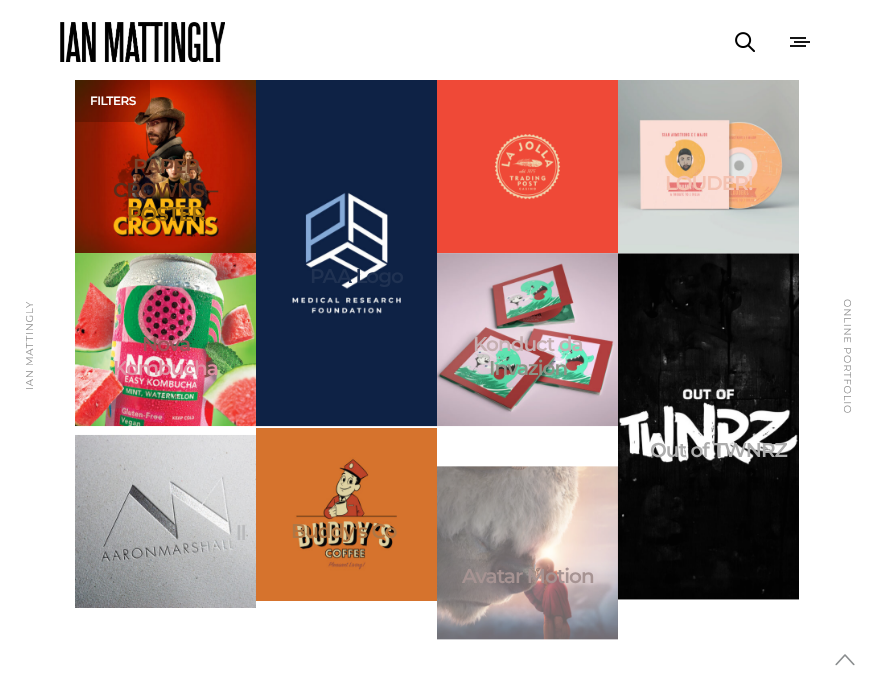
<?xml version="1.0" encoding="UTF-8"?>
<svg xmlns="http://www.w3.org/2000/svg" width="875" height="691">
    <rect width="100%" height="100%" fill="#FFFFFF"/>
    <image x="60" y="22" width="165" height="40" href="img_01.png"/>
    <image x="735" y="32" width="20" height="20" href="img_02.png"/>
    <rect x="790" y="37" width="16" height="2" fill="#151515"/>
    <rect x="794" y="41" width="16" height="2" fill="#151515"/>
    <rect x="790" y="45" width="16" height="2" fill="#151515"/>
    <text x="33" y="390" transform="rotate(-90 33 390)" font-family="Montserrat" font-size="10" letter-spacing="0.75" fill="#909090">IAN MATTINGLY</text>
    <image x="75" y="80" width="181" height="174" href="img_04.png"/>
    <rect x="75" y="80" width="75" height="42" fill="#000000" fill-opacity="0.2"/>
    <text x="90" y="105" font-family="Montserrat" font-size="12" font-weight="600" letter-spacing="-0.5" fill="#FFFFFF">FILTERS</text>
    <image x="437" y="80" width="181" height="174" href="img_03.png"/>
    <text x="133" y="173" font-family="Montserrat" font-size="20" font-weight="600" letter-spacing="-1" fill="#78462E">PAPER</text>
    <text x="113" y="197" font-family="Montserrat" font-size="20" font-weight="600" letter-spacing="-1" fill="#5A2D1B">CROWNS –</text>
    <text x="127" y="221" font-family="Montserrat" font-size="20" font-weight="600" letter-spacing="-1" fill="#9C6B0E">POSTER</text>
    <image x="618" y="80" width="181" height="173" href="img_05.png"/>
    <text x="665" y="190" font-family="Montserrat" font-size="20" font-weight="600" letter-spacing="-1" fill="#F4C2B1">LOUDER!</text>
    <image x="256" y="80" width="181" height="347" href="img_06.png"/>
    <text x="310" y="283" font-family="Montserrat" font-size="20" font-weight="600" letter-spacing="-1" fill="#203252">PAA Logo</text>
    <image x="75" y="253" width="181" height="174" href="img_07.png"/>
    <text x="142" y="351" font-family="Montserrat" font-size="20" font-weight="600" letter-spacing="-1" fill="#9E5259">Nova</text>
    <text x="113" y="375" font-family="Montserrat" font-size="20" font-weight="600" letter-spacing="-1" fill="#DF90A2">Kombucha</text>
    <image x="437" y="253" width="181" height="174" href="img_08.png"/>
    <text x="473" y="351" font-family="Montserrat" font-size="20" font-weight="600" letter-spacing="-1" fill="#C5AFB1">Konduct da</text>
    <text x="489" y="375" font-family="Montserrat" font-size="20" font-weight="600" letter-spacing="-1" fill="#8E9487">Invazion</text>
    <image x="618" y="253" width="181" height="347" href="img_09.png"/>
    <text x="650" y="457" font-family="Montserrat" font-size="20" font-weight="600" letter-spacing="-1" fill="#ADADAD">Out of TWNRZ</text>
    <image x="75" y="434" width="181" height="174" href="img_10.png"/>
    <text x="236" y="540" font-family="Montserrat" font-size="20" font-weight="600" letter-spacing="-1" fill="#B8B9BB">ll</text>
    <image x="256" y="428" width="181" height="173" href="img_11.png"/>
    <text x="291" y="538" font-family="Montserrat" font-size="20" font-weight="600" letter-spacing="-1" fill="#AF7745">Buddy’s Co</text>
    <image x="437" y="466" width="181" height="174" href="img_12.png"/>
    <text x="462" y="583" font-family="Montserrat" font-size="20" font-weight="600" letter-spacing="-1" fill="#A69392">Avatar Motion</text>
    <text x="844" y="299" transform="rotate(90 844 299)" font-family="Montserrat" font-size="10" letter-spacing="0.75" fill="#909090">ONLINE PORTFOLIO</text>
    <image x="835" y="654" width="20" height="12" href="img_13.png"/>
</svg>
